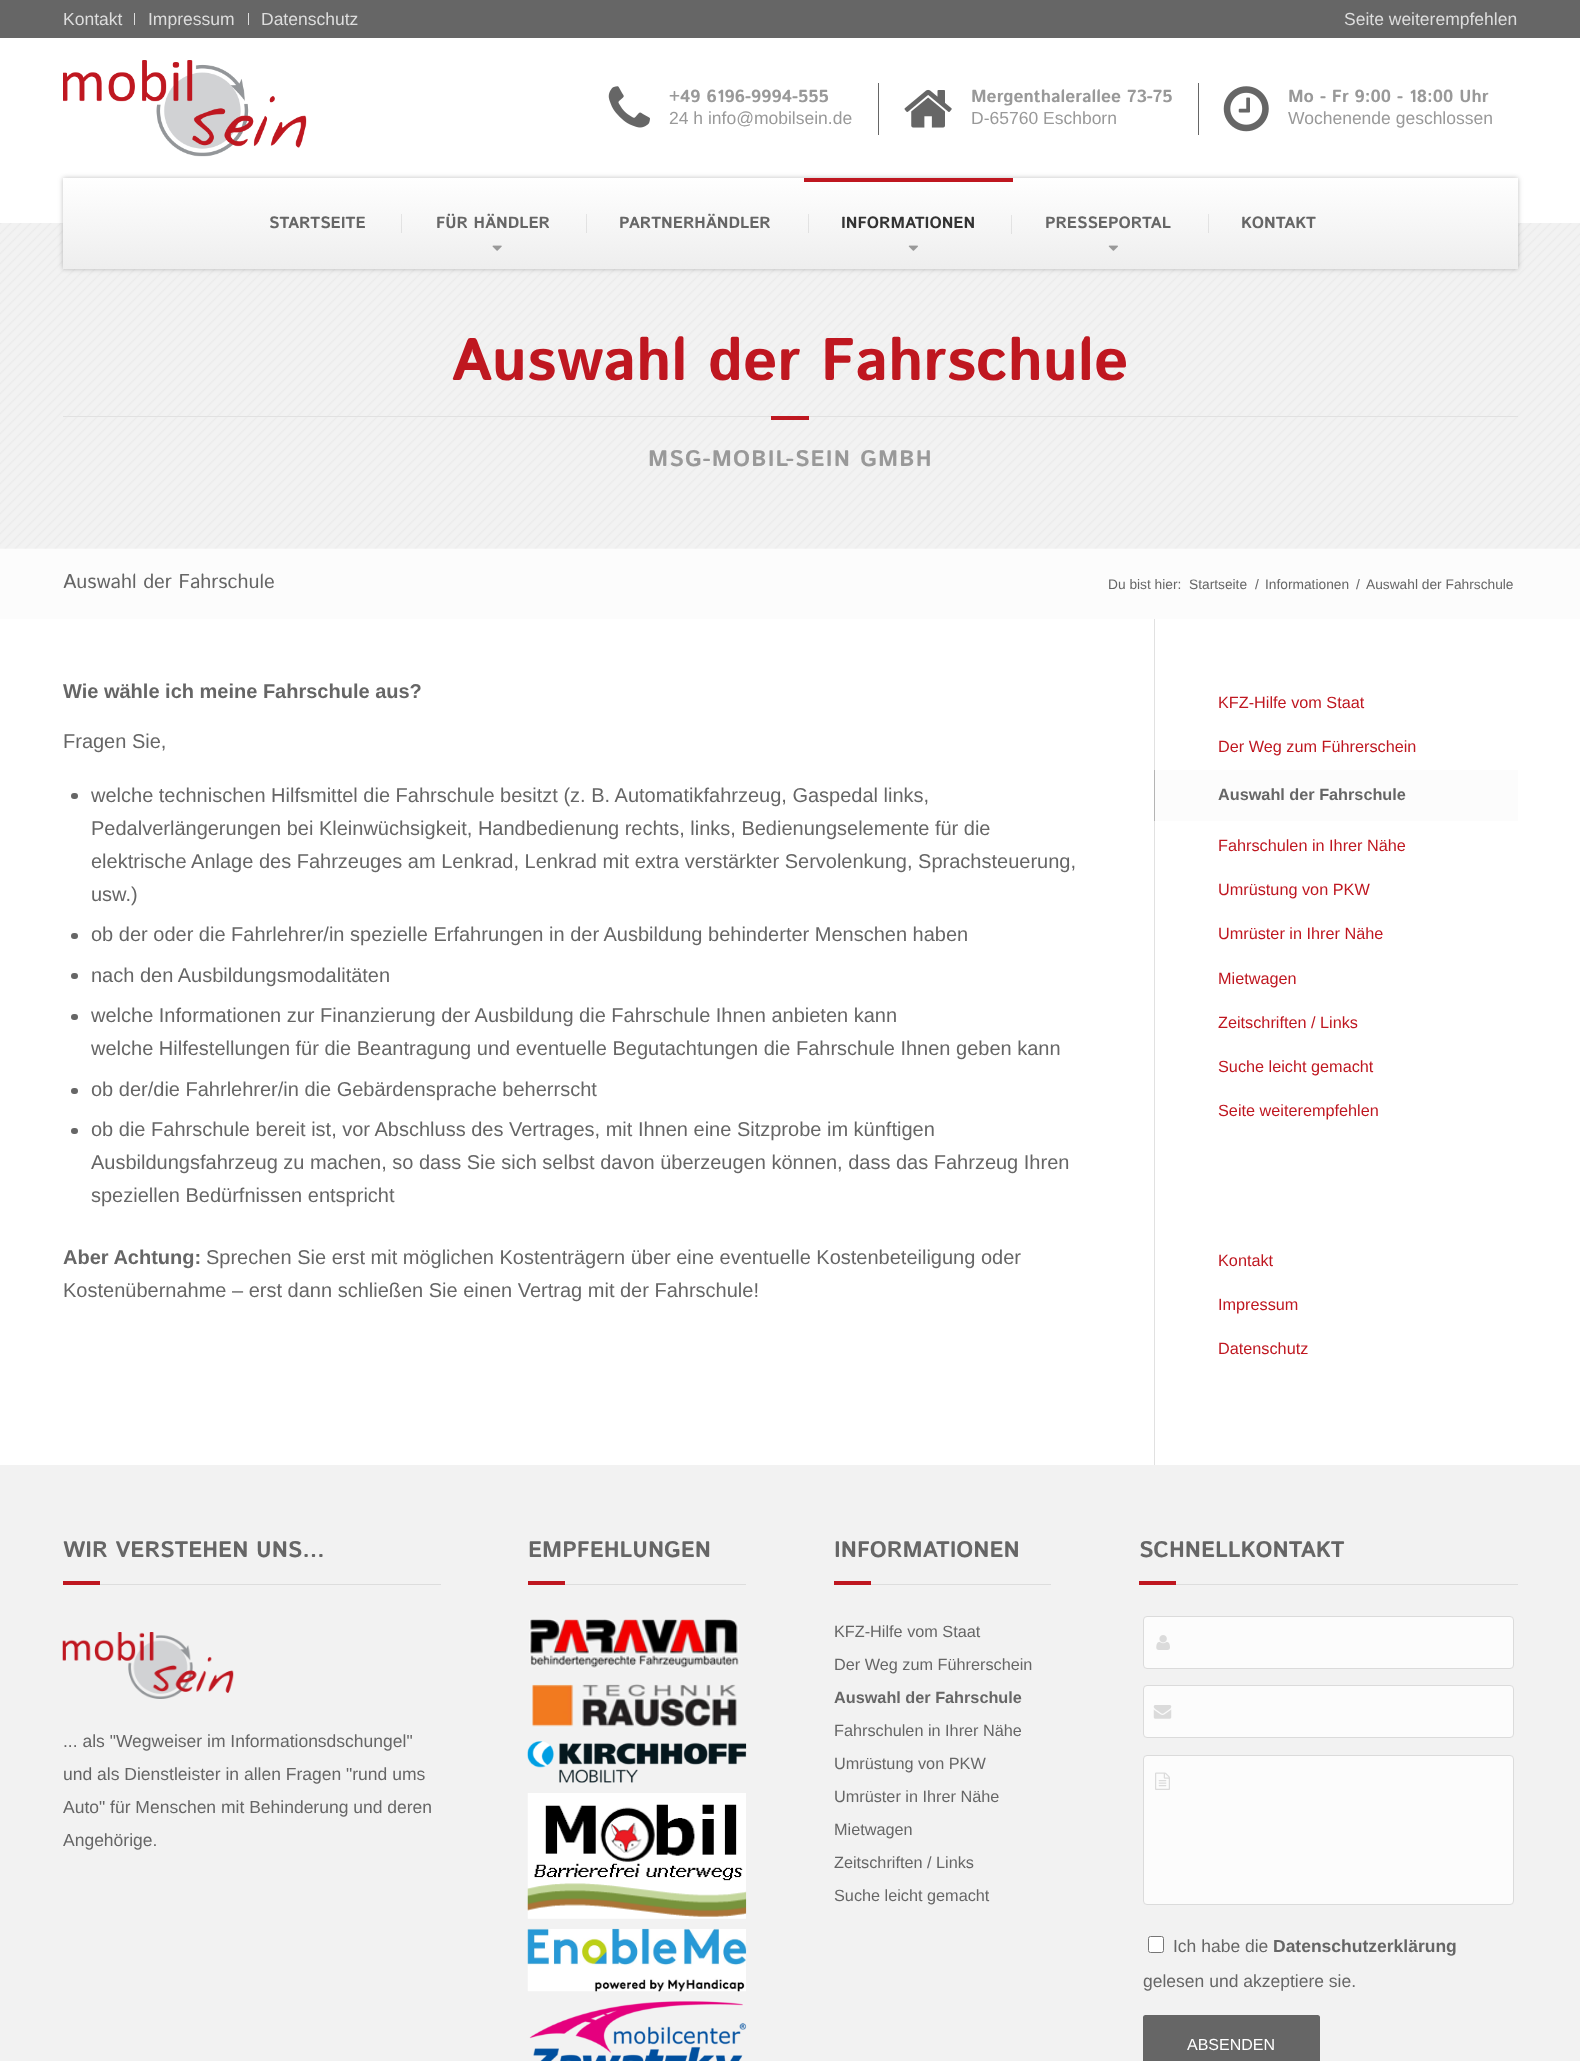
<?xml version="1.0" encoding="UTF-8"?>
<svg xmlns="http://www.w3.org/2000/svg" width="1580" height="2061">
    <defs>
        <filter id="blur1" x="-50%" y="-200%" width="200%" height="500%"><feGaussianBlur stdDeviation="2.5"/></filter>
        <linearGradient id="g1" gradientUnits="userSpaceOnUse" x1="790" y1="177" x2="790" y2="269"><stop offset="0" stop-color="#FFFFFF"/><stop offset="1" stop-color="#EEEEEE"/></linearGradient>
        <filter id="blur2" x="-50%" y="-200%" width="200%" height="500%"><feGaussianBlur stdDeviation="0.5"/></filter>
    </defs>
    <rect width="100%" height="100%" fill="#FFFFFF"/>
    <rect x="0" y="0" width="1580" height="38" fill="#666666"/>
    <rect x="134" y="13" width="1" height="12" fill="#DDDDDD"/>
    <text x="63" y="25" font-family="Liberation Sans" font-size="17.5" fill="#DDDDDD">Kontakt</text>
    <rect x="248" y="13" width="1" height="12" fill="#DDDDDD"/>
    <text x="148" y="25" font-family="Liberation Sans" font-size="17.5" fill="#DDDDDD">Impressum</text>
    <text x="261" y="25" font-family="Liberation Sans" font-size="17.5" fill="#DDDDDD">Datenschutz</text>
    <text x="1344" y="25" font-family="Liberation Sans" font-size="17.5" fill="#DDDDDD">Seite weiterempfehlen</text>
    <image x="63" y="60" width="244" height="97" href="img_01.png"/>
    <image x="608" y="86" width="42" height="42" href="img_02.png"/>
    <text x="669" y="102" font-family="Istok Web" font-size="17.5" font-weight="700" fill="#999999">+49 6196-9994-555</text>
    <text x="669" y="124" font-family="Liberation Sans" font-size="17.5" fill="#999999">24 h info@mobilsein.de</text>
    <rect x="878" y="83" width="1" height="52" fill="#666666"/>
    <image x="904" y="89" width="48" height="39" href="img_03.png"/>
    <text x="971" y="102" font-family="Istok Web" font-size="17.5" font-weight="700" fill="#999999">Mergenthalerallee 73-75</text>
    <text x="971" y="124" font-family="Liberation Sans" font-size="17.5" fill="#999999">D-65760 Eschborn</text>
    <rect x="1198" y="83" width="1" height="52" fill="#666666"/>
    <image x="1223" y="86" width="46" height="46" href="img_04.png"/>
    <text x="1288" y="102" font-family="Istok Web" font-size="17.5" font-weight="700" fill="#999999">Mo - Fr 9:00 - 18:00 Uhr</text>
    <text x="1288" y="124" font-family="Liberation Sans" font-size="17.5" fill="#999999">Wochenende geschlossen</text>
    <image x="0" y="223" width="1580" height="326" href="img_07.png"/>
    <rect x="63" y="178" width="1455" height="91" fill="#000000" fill-opacity="0.25" filter="url(#blur1)"/>
    <rect x="63" y="178" width="1455" height="91" fill="url(#g1)"/>
    <text x="269" y="228" font-family="Istok Web" font-size="16.25" font-weight="700" fill="#666666">STARTSEITE</text>
    <rect x="401" y="214" width="1" height="19" fill="#000000" fill-opacity="0.08"/>
    <text x="436" y="228" font-family="Istok Web" font-size="16.25" font-weight="700" fill="#666666">FÜR HÄNDLER</text>
    <rect x="586" y="214" width="1" height="19" fill="#000000" fill-opacity="0.08"/>
    <image x="492" y="245" width="10" height="6" href="img_05.png"/>
    <text x="619" y="228" font-family="Istok Web" font-size="16.25" font-weight="700" fill="#666666">PARTNERHÄNDLER</text>
    <rect x="808" y="214" width="1" height="19" fill="#000000" fill-opacity="0.08"/>
    <rect x="804" y="178" width="209" height="4" fill="#BF1720"/>
    <text x="841" y="228" font-family="Istok Web" font-size="16.25" font-weight="700" fill="#333333">INFORMATIONEN</text>
    <rect x="1011" y="215" width="1" height="19" fill="#000000" fill-opacity="0.08"/>
    <image x="908" y="245" width="10" height="6" href="img_06.png"/>
    <text x="1045" y="228" font-family="Istok Web" font-size="16.25" font-weight="700" fill="#666666">PRESSEPORTAL</text>
    <rect x="1208" y="214" width="1" height="19" fill="#000000" fill-opacity="0.08"/>
    <image x="1108" y="245" width="10" height="6" href="img_06.png"/>
    <text x="1241" y="228" font-family="Istok Web" font-size="16.25" font-weight="700" fill="#666666">KONTAKT</text>
    <rect x="63" y="416" width="1455" height="1" fill="#E1E1E1"/>
    <text x="451" y="380" font-family="Istok Web" font-size="60" font-weight="700" fill="#BF1720">Auswahl der Fahrschule</text>
    <rect x="771" y="416" width="38" height="4" fill="#BF1720"/>
    <text x="648" y="466" font-family="Istok Web" font-size="22.5" font-weight="700" letter-spacing="1.25" fill="#999999">MSG-MOBIL-SEIN GMBH</text>
    <rect x="0" y="549" width="1580" height="70" fill="#FCFCFC"/>
    <text x="63" y="588" font-family="Istok Web" font-size="20" fill="#666666">Auswahl der Fahrschule</text>
    <text x="1108" y="589" font-family="Liberation Sans" font-size="13.75" fill="#666666">Du bist hier:</text>
    <text x="1189" y="589" font-family="Liberation Sans" font-size="13.75" fill="#666666">Startseite</text>
    <text x="1255" y="589" font-family="Liberation Sans" font-size="13.75" fill="#666666">/</text>
    <text x="1265" y="589" font-family="Liberation Sans" font-size="13.75" fill="#666666">Informationen</text>
    <text x="1356" y="589" font-family="Liberation Sans" font-size="13.75" fill="#666666">/</text>
    <text x="1366" y="589" font-family="Liberation Sans" font-size="13.75" fill="#666666">Auswahl der Fahrschule</text>
    <text x="63" y="698" font-family="Liberation Sans" font-size="20" font-weight="700" fill="#666666">Wie wähle ich meine Fahrschule aus?</text>
    <text x="63" y="748" font-family="Liberation Sans" font-size="20" fill="#666666">Fragen Sie,</text>
    <rect x="71" y="793" width="7" height="6" rx="3" fill="#666666"/>
    <text font-family="Liberation Sans" font-size="20" fill="#666666">
        <tspan x="91" y="802">welche technischen Hilfsmittel die Fahrschule besitzt (z. B. Automatikfahrzeug, Gaspedal links,</tspan>
        <tspan x="91" y="835">Pedalverlängerungen bei Kleinwüchsigkeit, Handbedienung rechts, links, Bedienungselemente für die</tspan>
        <tspan x="91" y="868">elektrische Anlage des Fahrzeuges am Lenkrad, Lenkrad mit extra verstärkter Servolenkung, Sprachsteuerung,</tspan>
        <tspan x="91" y="901">usw.)</tspan>
    </text>
    <rect x="71" y="933" width="7" height="6" rx="3" fill="#666666"/>
    <text x="91" y="941" font-family="Liberation Sans" font-size="20" fill="#666666">ob der oder die Fahrlehrer/in spezielle Erfahrungen in der Ausbildung behinderter Menschen haben</text>
    <rect x="71" y="973" width="7" height="6" rx="3" fill="#666666"/>
    <text x="91" y="982" font-family="Liberation Sans" font-size="20" fill="#666666">nach den Ausbildungsmodalitäten</text>
    <rect x="71" y="1014" width="7" height="6" rx="3" fill="#666666"/>
    <text font-family="Liberation Sans" font-size="20" fill="#666666">
        <tspan x="91" y="1022">welche Informationen zur Finanzierung der Ausbildung die Fahrschule Ihnen anbieten kann</tspan>
        <tspan x="91" y="1055">welche Hilfestellungen für die Beantragung und eventuelle Begutachtungen die Fahrschule Ihnen geben kann</tspan>
    </text>
    <rect x="71" y="1088" width="7" height="6" rx="3" fill="#666666"/>
    <text x="91" y="1096" font-family="Liberation Sans" font-size="20" fill="#666666">ob der/die Fahrlehrer/in die Gebärdensprache beherrscht</text>
    <rect x="71" y="1128" width="7" height="6" rx="3" fill="#666666"/>
    <text font-family="Liberation Sans" font-size="20" fill="#666666">
        <tspan x="91" y="1136">ob die Fahrschule bereit ist, vor Abschluss des Vertrages, mit Ihnen eine Sitzprobe im künftigen</tspan>
        <tspan x="91" y="1169">Ausbildungsfahrzeug zu machen, so dass Sie sich selbst davon überzeugen können, dass das Fahrzeug Ihren</tspan>
        <tspan x="91" y="1202">speziellen Bedürfnissen entspricht</tspan>
    </text>
    <text x="63" y="1264" font-family="Liberation Sans" font-size="20" font-weight="700" fill="#666666">Aber Achtung:</text>
    <text x="206" y="1264" font-family="Liberation Sans" font-size="20" fill="#666666">Sprechen Sie erst mit möglichen Kostenträgern über eine eventuelle Kostenbeteiligung oder</text>
    <text x="63" y="1297" font-family="Liberation Sans" font-size="20" fill="#666666">Kostenübernahme – erst dann schließen Sie einen Vertrag mit der Fahrschule!</text>
    <rect x="1154" y="619" width="1" height="846" fill="#E1E1E1"/>
    <text x="1218" y="708" font-family="Liberation Sans" font-size="16.25" fill="#BF1720">KFZ-Hilfe vom Staat</text>
    <text x="1218" y="752" font-family="Liberation Sans" font-size="16.25" fill="#BF1720">Der Weg zum Führerschein</text>
    <rect x="1154" y="770" width="364" height="51" fill="#000000" fill-opacity="0.2" filter="url(#blur2)"/>
    <rect x="1155" y="770" width="363" height="51" fill="#FCFCFC"/>
    <text x="1218" y="800" font-family="Liberation Sans" font-size="16.25" font-weight="700" fill="#666666">Auswahl der Fahrschule</text>
    <text x="1218" y="851" font-family="Liberation Sans" font-size="16.25" fill="#BF1720">Fahrschulen in Ihrer Nähe</text>
    <text x="1218" y="895" font-family="Liberation Sans" font-size="16.25" fill="#BF1720">Umrüstung von PKW</text>
    <text x="1218" y="939" font-family="Liberation Sans" font-size="16.25" fill="#BF1720">Umrüster in Ihrer Nähe</text>
    <text x="1218" y="984" font-family="Liberation Sans" font-size="16.25" fill="#BF1720">Mietwagen</text>
    <text x="1218" y="1028" font-family="Liberation Sans" font-size="16.25" fill="#BF1720">Zeitschriften / Links</text>
    <text x="1218" y="1072" font-family="Liberation Sans" font-size="16.25" fill="#BF1720">Suche leicht gemacht</text>
    <text x="1218" y="1116" font-family="Liberation Sans" font-size="16.25" fill="#BF1720">Seite weiterempfehlen</text>
    <text x="1218" y="1266" font-family="Liberation Sans" font-size="16.25" fill="#BF1720">Kontakt</text>
    <text x="1218" y="1310" font-family="Liberation Sans" font-size="16.25" fill="#BF1720">Impressum</text>
    <text x="1218" y="1354" font-family="Liberation Sans" font-size="16.25" fill="#BF1720">Datenschutz</text>
    <rect x="0" y="1465" width="1580" height="596" fill="#F2F2F2"/>
    <rect x="100" y="1584" width="341" height="1" fill="#DDDDDD"/>
    <text x="63" y="1557" font-family="Istok Web" font-size="22.5" font-weight="700" fill="#666666">WIR VERSTEHEN UNS…</text>
    <rect x="63" y="1581" width="37" height="4" fill="#BF1720"/>
    <image x="62" y="1632" width="172" height="67" href="img_08.png"/>
    <text font-family="Liberation Sans" font-size="17.5" fill="#666666">
        <tspan x="63" y="1747">... als "Wegweiser im Informationsdschungel"</tspan>
        <tspan x="63" y="1780">und als Dienstleister in allen Fragen "rund ums</tspan>
        <tspan x="63" y="1813">Auto" für Menschen mit Behinderung und deren</tspan>
        <tspan x="63" y="1846">Angehörige.</tspan>
    </text>
    <rect x="565" y="1584" width="181" height="1" fill="#DDDDDD"/>
    <text x="528" y="1557" font-family="Istok Web" font-size="22.5" font-weight="700" fill="#666666">EMPFEHLUNGEN</text>
    <rect x="528" y="1581" width="37" height="4" fill="#BF1720"/>
    <image x="529" y="1619" width="211" height="50" href="img_09.png"/>
    <image x="532" y="1684" width="205" height="44" href="img_10.png"/>
    <image x="527" y="1741" width="220" height="42" href="img_11.png"/>
    <image x="527" y="1793" width="220" height="126" href="img_12.png"/>
    <image x="527" y="1928" width="220" height="64" href="img_13.png"/>
    <image x="529" y="2001" width="218" height="60" href="img_14.png"/>
    <rect x="871" y="1584" width="180" height="1" fill="#DDDDDD"/>
    <text x="834" y="1557" font-family="Istok Web" font-size="22.5" font-weight="700" fill="#666666">INFORMATIONEN</text>
    <rect x="834" y="1581" width="37" height="4" fill="#BF1720"/>
    <text x="834" y="1637" font-family="Liberation Sans" font-size="16.25" fill="#666666">KFZ-Hilfe vom Staat</text>
    <text x="834" y="1670" font-family="Liberation Sans" font-size="16.25" fill="#666666">Der Weg zum Führerschein</text>
    <text x="834" y="1703" font-family="Liberation Sans" font-size="16.25" font-weight="700" fill="#666666">Auswahl der Fahrschule</text>
    <text x="834" y="1736" font-family="Liberation Sans" font-size="16.25" fill="#666666">Fahrschulen in Ihrer Nähe</text>
    <text x="834" y="1769" font-family="Liberation Sans" font-size="16.25" fill="#666666">Umrüstung von PKW</text>
    <text x="834" y="1802" font-family="Liberation Sans" font-size="16.25" fill="#666666">Umrüster in Ihrer Nähe</text>
    <text x="834" y="1835" font-family="Liberation Sans" font-size="16.25" fill="#666666">Mietwagen</text>
    <text x="834" y="1868" font-family="Liberation Sans" font-size="16.25" fill="#666666">Zeitschriften / Links</text>
    <text x="834" y="1901" font-family="Liberation Sans" font-size="16.25" fill="#666666">Suche leicht gemacht</text>
    <rect x="1176" y="1584" width="342" height="1" fill="#DDDDDD"/>
    <text x="1139" y="1557" font-family="Istok Web" font-size="22.5" font-weight="700" fill="#666666">SCHNELLKONTAKT</text>
    <rect x="1139" y="1581" width="37" height="4" fill="#BF1720"/>
    <rect x="1143.5" y="1616.5" width="370" height="52" rx="3.5" fill="#FCFCFC" stroke="#DBDBDB"/>
    <image x="1156" y="1635" width="14" height="15" href="img_15.png"/>
    <rect x="1143.5" y="1685.5" width="370" height="52" rx="3.5" fill="#FCFCFC" stroke="#DBDBDB"/>
    <image x="1153" y="1705" width="19" height="14" href="img_16.png"/>
    <rect x="1143.5" y="1755.5" width="370" height="149" rx="3.5" fill="#FCFCFC" stroke="#DBDBDB"/>
    <image x="1155" y="1772" width="15" height="18" href="img_17.png"/>
    <rect x="1148.5" y="1936.5" width="15" height="16" rx="2" fill="#FFFFFF" stroke="#767676"/>
    <text x="1173" y="1952" font-family="Liberation Sans" font-size="17.5" fill="#666666">Ich habe die</text>
    <text x="1273" y="1952" font-family="Liberation Sans" font-size="17.5" font-weight="700" fill="#666666">Datenschutzerklärung</text>
    <text x="1143" y="1987" font-family="Liberation Sans" font-size="17.5" fill="#666666">gelesen und akzeptiere sie.</text>
    <rect x="1143" y="2015" width="177" height="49" rx="2.5" fill="#666666"/>
    <text x="1187" y="2050" font-family="Liberation Sans" font-size="16" fill="#FFFFFF">ABSENDEN</text>
</svg>
